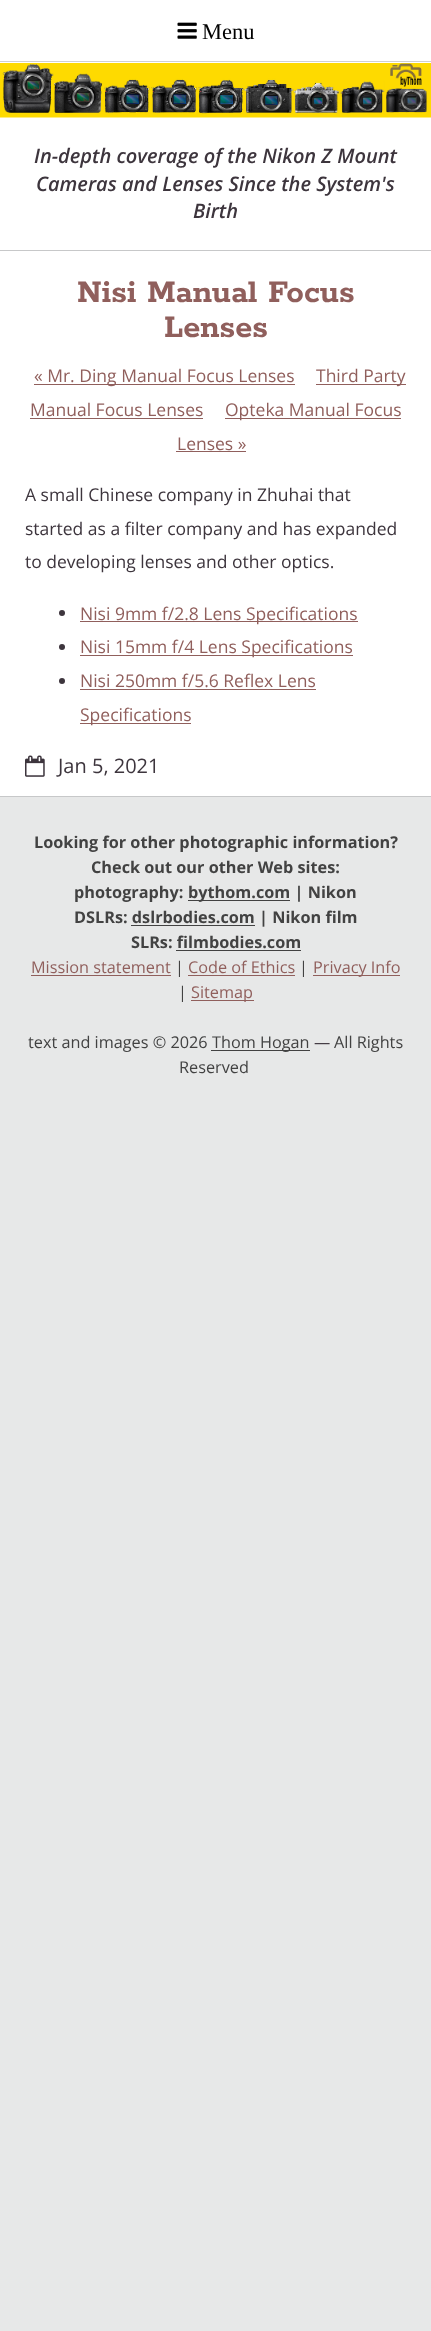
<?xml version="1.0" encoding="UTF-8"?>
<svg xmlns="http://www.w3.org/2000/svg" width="431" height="2331">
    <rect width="100%" height="100%" fill="#E7E8E8"/>
    <rect x="0" y="0" width="431" height="63" fill="#FFFFFF"/>
    <rect x="0" y="61" width="431" height="1" fill="#D0D0D0"/>
    <image x="177" y="22" width="20" height="17" href="img_01.png"/>
    <text x="202" y="39" font-family="Liberation Serif" font-size="22.5" fill="#000000">Menu</text>
    <rect x="0" y="117" width="431" height="679" fill="#FFFFFF"/>
    <image x="0" y="63" width="431" height="55" href="img_02.png"/>
    <text x="34" y="163" font-family="Open Sans" font-size="20" font-weight="600" font-style="italic" fill="#3D353D">In-depth coverage of the Nikon Z Mount</text>
    <text x="36" y="191" font-family="Open Sans" font-size="20" font-weight="600" font-style="italic" fill="#3D353D">Cameras and Lenses Since the System's</text>
    <text x="193" y="218" font-family="Open Sans" font-size="20" font-weight="600" font-style="italic" fill="#3D353D">Birth</text>
    <rect x="0" y="250" width="431" height="1" fill="#C7C8C9"/>
    <text x="77" y="302" font-family="Rokkitt" font-size="35" font-weight="700" fill="#905F5C">Nisi Manual Focus</text>
    <text x="164" y="337" font-family="Rokkitt" font-size="35" font-weight="700" fill="#905F5C">Lenses</text>
    <rect x="34" y="384" width="261" height="1" fill="#905F5C"/>
    <text x="34" y="382" font-family="Open Sans" font-size="17.5" fill="#905F5C">« Mr. Ding Manual Focus Lenses</text>
    <rect x="316" y="384" width="90" height="1" fill="#905F5C"/>
    <text x="316" y="382" font-family="Open Sans" font-size="17.5" fill="#905F5C">Third Party</text>
    <text x="30" y="416" font-family="Open Sans" font-size="17.5" fill="#905F5C">Manual Focus Lenses</text>
    <rect x="30" y="418" width="173" height="1" fill="#905F5C"/>
    <rect x="225" y="418" width="176" height="1" fill="#905F5C"/>
    <text x="225" y="416" font-family="Open Sans" font-size="17.5" fill="#905F5C">Opteka Manual Focus</text>
    <text x="177" y="450" font-family="Open Sans" font-size="17.5" fill="#905F5C">Lenses »</text>
    <rect x="176" y="451" width="70" height="1" fill="#905F5C"/>
    <text font-family="Open Sans" font-size="17.5" fill="#3D353D">
        <tspan x="25" y="501">A small Chinese company in Zhuhai that</tspan>
        <tspan x="25" y="535">started as a filter company and has expanded</tspan>
        <tspan x="25" y="568">to developing lenses and other optics.</tspan>
    </text>
    <circle cx="62" cy="613" r="3" fill="#3D353D"/>
    <rect x="80" y="621" width="278" height="1" fill="#905F5C"/>
    <text x="80" y="620" font-family="Open Sans" font-size="17.5" fill="#905F5C">Nisi 9mm f/2.8 Lens Specifications</text>
    <circle cx="62" cy="647" r="3" fill="#3D353D"/>
    <rect x="80" y="655" width="273" height="1" fill="#905F5C"/>
    <text x="80" y="653" font-family="Open Sans" font-size="17.5" fill="#905F5C">Nisi 15mm f/4 Lens Specifications</text>
    <circle cx="62" cy="681" r="3" fill="#3D353D"/>
    <text x="80" y="687" font-family="Open Sans" font-size="17.5" fill="#905F5C">Nisi 250mm f/5.6 Reflex Lens</text>
    <rect x="80" y="689" width="236" height="1" fill="#905F5C"/>
    <rect x="80" y="723" width="111" height="1" fill="#905F5C"/>
    <text x="80" y="721" font-family="Open Sans" font-size="17.5" fill="#905F5C">Specifications</text>
    <image x="25" y="755" width="20" height="22" href="img_03.png"/>
    <text x="58" y="773" font-family="Open Sans" font-size="20" fill="#3D353D">Jan 5, 2021</text>
    <rect x="0" y="796" width="431" height="1" fill="#C7C8C9"/>
    <text x="34" y="848" font-family="Open Sans" font-size="16.25" font-weight="700" fill="#424242">Looking for other photographic information?</text>
    <text x="91" y="873" font-family="Open Sans" font-size="16.25" font-weight="700" fill="#424242">Check out our other Web sites:</text>
    <text x="74" y="898" font-family="Open Sans" font-size="16.25" font-weight="700" fill="#424242">photography:</text>
    <rect x="188" y="900" width="102" height="1" fill="#424242"/>
    <text x="188" y="898" font-family="Open Sans" font-size="16.25" font-weight="700" fill="#424242">bythom.com | Nikon</text>
    <text x="74" y="923" font-family="Open Sans" font-size="16.25" font-weight="700" fill="#424242">DSLRs: dslrbodies.com | Nikon film</text>
    <rect x="131" y="925" width="124" height="1" fill="#424242"/>
    <text x="131" y="948" font-family="Open Sans" font-size="16.25" font-weight="700" fill="#424242">SLRs: filmbodies.com</text>
    <rect x="176" y="950" width="125" height="1" fill="#424242"/>
    <text x="31" y="973" font-family="Open Sans" font-size="16.25" fill="#905F5C">Mission statement</text>
    <rect x="31" y="975" width="140" height="1" fill="#905F5C"/>
    <text x="175" y="973" font-family="Open Sans" font-size="16.25" fill="#424242">|</text>
    <text x="188" y="973" font-family="Open Sans" font-size="16.25" fill="#905F5C">Code of Ethics</text>
    <rect x="188" y="975" width="107" height="1" fill="#905F5C"/>
    <text x="299" y="973" font-family="Open Sans" font-size="16.25" fill="#424242">|</text>
    <rect x="313" y="975" width="87" height="1" fill="#905F5C"/>
    <text x="313" y="973" font-family="Open Sans" font-size="16.25" fill="#905F5C">Privacy Info</text>
    <text x="178" y="998" font-family="Open Sans" font-size="16.25" fill="#424242">|</text>
    <rect x="191" y="1000" width="63" height="1" fill="#905F5C"/>
    <text x="191" y="998" font-family="Open Sans" font-size="16.25" fill="#905F5C">Sitemap</text>
    <text x="28" y="1048" font-family="Open Sans" font-size="16.25" fill="#424242">text and images © 2026</text>
    <rect x="211" y="1050" width="99" height="1" fill="#424242"/>
    <text x="212" y="1048" font-family="Open Sans" font-size="16.25" fill="#424242">Thom Hogan</text>
    <text x="314" y="1048" font-family="Open Sans" font-size="16.25" fill="#3D353D">—</text>
    <text x="334" y="1048" font-family="Open Sans" font-size="16.25" fill="#424242">All Rights</text>
    <text x="179" y="1073" font-family="Open Sans" font-size="16.25" fill="#424242">Reserved</text>
</svg>
